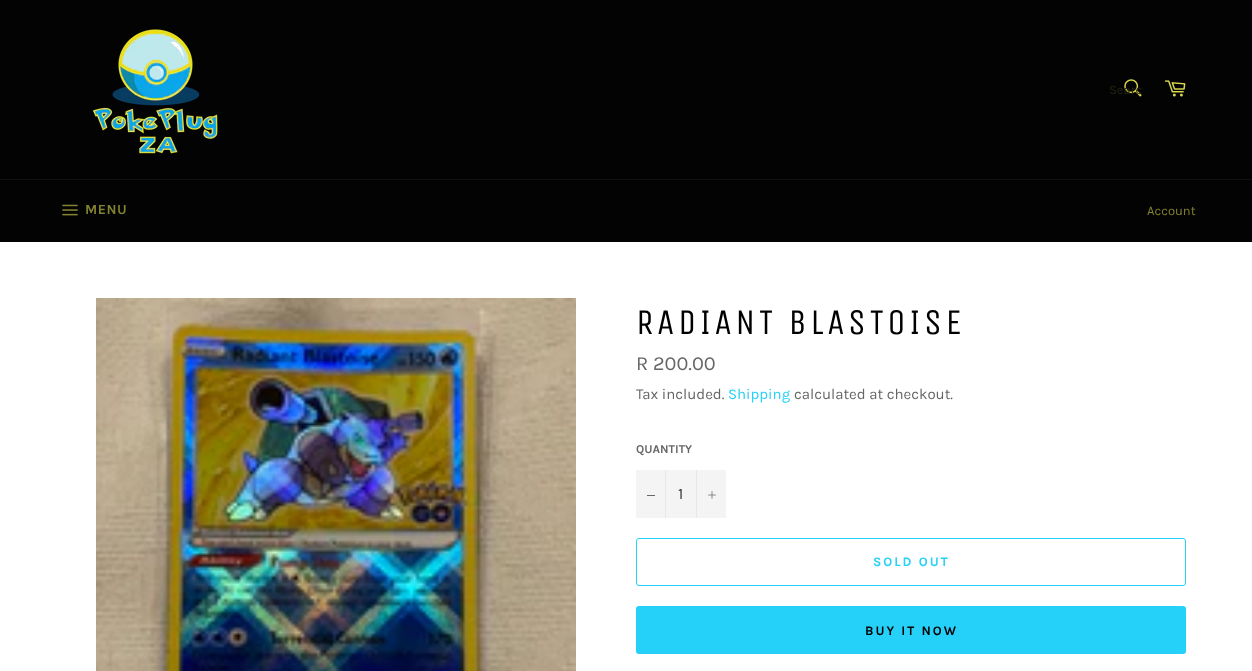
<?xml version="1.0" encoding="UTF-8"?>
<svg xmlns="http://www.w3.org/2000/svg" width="1252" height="671">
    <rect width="100%" height="100%" fill="#FFFFFF"/>
    <rect x="0" y="0" width="1252" height="179" fill="#030303"/>
    <image x="92" y="29" width="126" height="125" href="img_01.png"/>
    <image x="1124" y="79" width="18" height="18" href="img_02.png"/>
    <text x="1109" y="94" font-family="Karla" font-size="13" fill="#25250F">Searc</text>
    <image x="1164" y="80" width="22" height="17" href="img_03.png"/>
    <rect x="0" y="180" width="1252" height="62" fill="#030303"/>
    <rect x="0" y="179" width="1252" height="1" fill="#101010"/>
    <image x="62" y="204" width="16" height="12" href="img_04.png"/>
    <text x="85" y="214" font-family="Karla" font-size="14" font-weight="700" letter-spacing="0.5" fill="#848330">MENU</text>
    <text x="1147" y="215" font-family="Karla" font-size="13" fill="#848330">Account</text>
    <image x="96" y="298" width="480" height="373" href="img_05.png"/>
    <text x="636" y="334" font-family="Unica One" font-size="36" letter-spacing="3.6" fill="#000000">RADIANT BLASTOISE</text>
    <text x="636" y="370" font-family="Karla" font-size="20" fill="#666666">R 200.00</text>
    <text x="636" y="399" font-family="Karla" font-size="15" fill="#666666">Tax included.</text>
    <text x="728" y="399" font-family="Karla" font-size="15" fill="#25D1F9">Shipping</text>
    <text x="794" y="399" font-family="Karla" font-size="15" fill="#666666">calculated at checkout.</text>
    <text x="636" y="453" font-family="Karla" font-size="12" font-weight="700" fill="#666666">QUANTITY</text>
    <rect x="636" y="470" width="90" height="48" fill="#F4F4F4"/>
    <rect x="665" y="470" width="1" height="48" fill="#E7E7E7"/>
    <rect x="647" y="495" width="8" height="1" fill="#666666"/>
    <text x="678" y="499" font-family="Karla" font-size="16" fill="#333333">1</text>
    <rect x="696" y="470" width="1" height="48" fill="#E7E7E7"/>
    <image x="708" y="491" width="8" height="8" href="img_06.png"/>
    <rect x="636.5" y="538.5" width="549" height="47" rx="2.5" fill="none" stroke="#25D1F9"/>
    <text x="873" y="566" font-family="Karla" font-size="13" font-weight="700" letter-spacing="2" fill="#25D1F9">SOLD OUT</text>
    <rect x="636" y="606" width="550" height="48" rx="3" fill="#25D1F9"/>
    <text x="865" y="635" font-family="Karla" font-size="13" font-weight="700" letter-spacing="2" fill="#000000">BUY IT NOW</text>
</svg>
